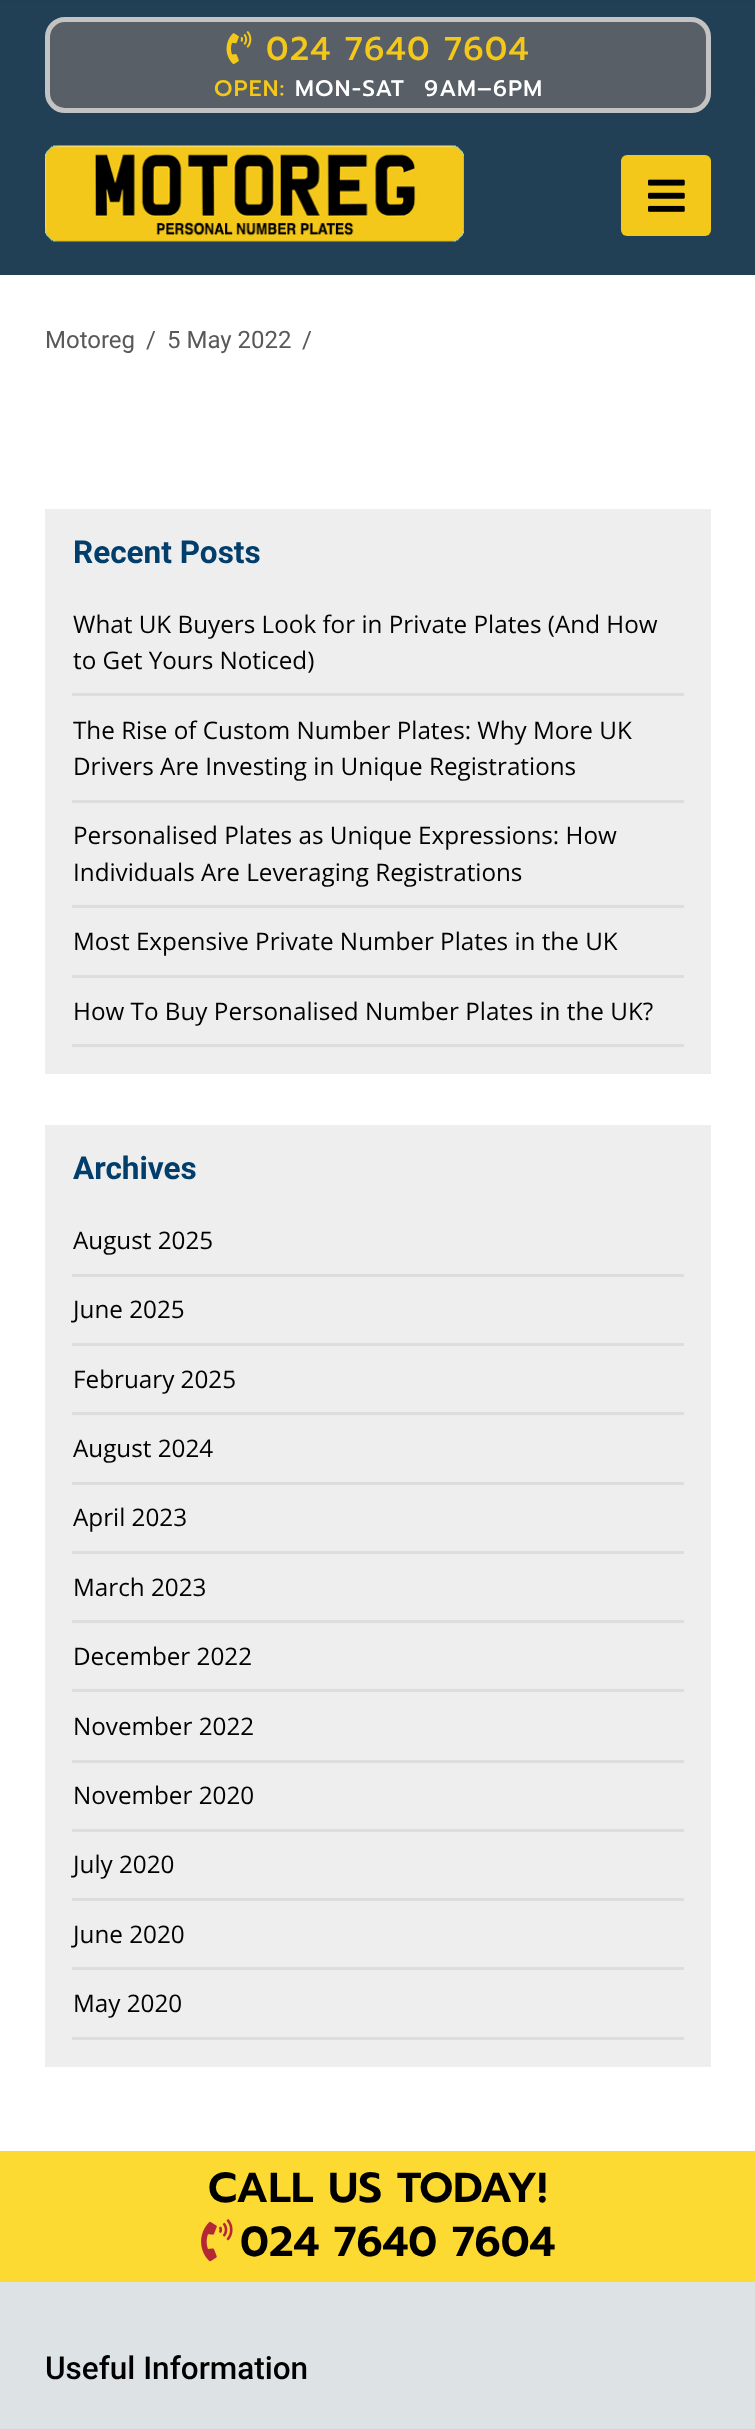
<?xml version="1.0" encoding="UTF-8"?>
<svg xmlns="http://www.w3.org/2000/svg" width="755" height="2429">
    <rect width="100%" height="100%" fill="#FFFFFF"/>
    <rect x="0" y="0" width="755" height="2" fill="#F2F2F2"/>
    <rect x="0" y="92" width="755" height="2" fill="#F2F2F2"/>
    <rect x="0" y="0" width="755" height="275" fill="#092A42" fill-opacity="0.9"/>
    <image x="45" y="145" width="419" height="97" href="img_01.png"/>
    <rect x="47.5" y="19.5" width="661" height="91" rx="17.5" fill="#595F66" stroke="#C3C3C3" stroke-width="5"/>
    <image x="226" y="31" width="26" height="34" href="img_02.png"/>
    <text x="266" y="60" font-family="Prompt" font-size="33" font-weight="500" letter-spacing="1.25" fill="#F3C81A">024 7640 7604</text>
    <text x="214" y="96" font-family="Prompt" font-size="22.5" font-weight="500" letter-spacing="1.25" fill="#F3C81A">OPEN:</text>
    <text x="295" y="96" font-family="Prompt" font-size="22.5" font-weight="500" letter-spacing="1.25" fill="#FFFFFF" xml:space="preserve">MON-SAT  9AM–6PM</text>
    <rect x="621" y="155" width="90" height="81" rx="6" fill="#F3C81A"/>
    <image x="648" y="179" width="37" height="33" href="img_03.png"/>
    <text x="45" y="348" font-family="Roboto" font-size="24" fill="#595959">Motoreg</text>
    <text x="146" y="348" font-family="Roboto" font-size="24" fill="#595959">/</text>
    <text x="167" y="348" font-family="Roboto" font-size="24" fill="#595959">5 May 2022</text>
    <text x="302" y="348" font-family="Roboto" font-size="24" fill="#595959">/</text>
    <rect x="45" y="509" width="666" height="565" fill="#EEEEEE"/>
    <text x="73" y="563" font-family="Roboto" font-size="31.5" font-weight="700" fill="#013E6B">Recent Posts</text>
    <rect x="72" y="693" width="612" height="3" fill="#DDDDDD"/>
    <text font-family="Open Sans" font-size="24.25" fill="#000000">
        <tspan x="73" y="633">What UK Buyers Look for in Private Plates (And How</tspan>
        <tspan x="73" y="669">to Get Yours Noticed)</tspan>
    </text>
    <rect x="72" y="800" width="612" height="3" fill="#DDDDDD"/>
    <text font-family="Open Sans" font-size="24.25" fill="#000000">
        <tspan x="73" y="739">The Rise of Custom Number Plates: Why More UK</tspan>
        <tspan x="73" y="775">Drivers Are Investing in Unique Registrations</tspan>
    </text>
    <rect x="72" y="905" width="612" height="3" fill="#DDDDDD"/>
    <text font-family="Open Sans" font-size="24.25" fill="#000000">
        <tspan x="73" y="844">Personalised Plates as Unique Expressions: How</tspan>
        <tspan x="73" y="881">Individuals Are Leveraging Registrations</tspan>
    </text>
    <rect x="72" y="975" width="612" height="3" fill="#DDDDDD"/>
    <text x="73" y="950" font-family="Open Sans" font-size="24.25" fill="#000000">Most Expensive Private Number Plates in the UK</text>
    <rect x="72" y="1044" width="612" height="3" fill="#DDDDDD"/>
    <text x="73" y="1020" font-family="Open Sans" font-size="24.25" fill="#000000">How To Buy Personalised Number Plates in the UK?</text>
    <rect x="45" y="1125" width="666" height="942" fill="#EEEEEE"/>
    <text x="73" y="1179" font-family="Roboto" font-size="31.5" font-weight="700" fill="#013E6B">Archives</text>
    <rect x="72" y="1274" width="612" height="3" fill="#DDDDDD"/>
    <text x="73" y="1249" font-family="Open Sans" font-size="24.25" fill="#000000">August 2025</text>
    <rect x="72" y="1343" width="612" height="3" fill="#DDDDDD"/>
    <text x="73" y="1318" font-family="Open Sans" font-size="24.25" fill="#000000">June 2025</text>
    <rect x="72" y="1412" width="612" height="3" fill="#DDDDDD"/>
    <text x="73" y="1388" font-family="Open Sans" font-size="24.25" fill="#000000">February 2025</text>
    <rect x="72" y="1482" width="612" height="3" fill="#DDDDDD"/>
    <text x="73" y="1457" font-family="Open Sans" font-size="24.25" fill="#000000">August 2024</text>
    <rect x="72" y="1551" width="612" height="3" fill="#DDDDDD"/>
    <text x="73" y="1526" font-family="Open Sans" font-size="24.25" fill="#000000">April 2023</text>
    <rect x="72" y="1620" width="612" height="3" fill="#DDDDDD"/>
    <text x="73" y="1596" font-family="Open Sans" font-size="24.25" fill="#000000">March 2023</text>
    <rect x="72" y="1689" width="612" height="3" fill="#DDDDDD"/>
    <text x="73" y="1665" font-family="Open Sans" font-size="24.25" fill="#000000">December 2022</text>
    <rect x="72" y="1760" width="612" height="3" fill="#DDDDDD"/>
    <text x="73" y="1735" font-family="Open Sans" font-size="24.25" fill="#000000">November 2022</text>
    <rect x="72" y="1829" width="612" height="3" fill="#DDDDDD"/>
    <text x="73" y="1804" font-family="Open Sans" font-size="24.25" fill="#000000">November 2020</text>
    <rect x="72" y="1898" width="612" height="3" fill="#DDDDDD"/>
    <text x="73" y="1873" font-family="Open Sans" font-size="24.25" fill="#000000">July 2020</text>
    <rect x="72" y="1967" width="612" height="3" fill="#DDDDDD"/>
    <text x="73" y="1943" font-family="Open Sans" font-size="24.25" fill="#000000">June 2020</text>
    <rect x="72" y="2037" width="612" height="3" fill="#DDDDDD"/>
    <text x="73" y="2012" font-family="Open Sans" font-size="24.25" fill="#000000">May 2020</text>
    <rect x="0" y="2151" width="755" height="131" fill="#FCDA32"/>
    <text x="208" y="2202" font-family="Prompt" font-size="42" font-weight="600" fill="#000000">CALL US TODAY!</text>
    <image x="201" y="2219" width="32" height="43" href="img_04.png"/>
    <text x="240" y="2256" font-family="Prompt" font-size="42" font-weight="600" fill="#000000">024 7640 7604</text>
    <rect x="0" y="2282" width="755" height="147" fill="#DDE3E4"/>
    <text x="45" y="2379" font-family="Roboto" font-size="31.5" font-weight="500" fill="#000000">Useful Information</text>
</svg>
